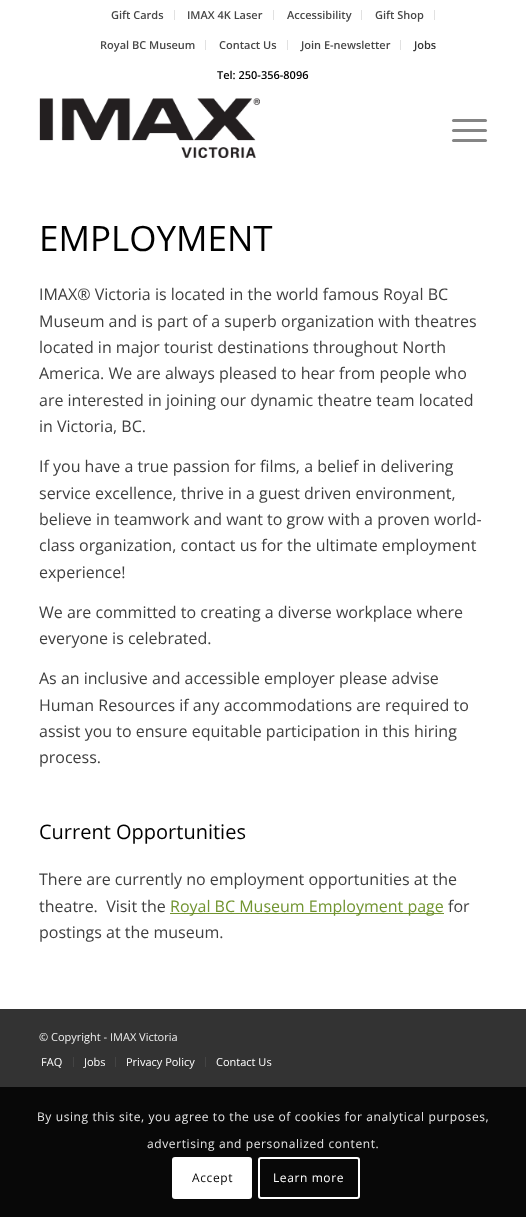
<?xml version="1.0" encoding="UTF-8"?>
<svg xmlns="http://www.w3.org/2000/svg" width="526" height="1217">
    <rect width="100%" height="100%" fill="#333333"/>
    <rect x="0" y="0" width="526" height="1009" fill="#FFFFFF"/>
    <rect x="174" y="10" width="1" height="10" fill="#E1E1E1"/>
    <text x="111" y="19" font-family="Open Sans" font-size="11" font-weight="600" fill="#474747">Gift Cards</text>
    <rect x="273" y="10" width="1" height="10" fill="#E1E1E1"/>
    <text x="187" y="19" font-family="Open Sans" font-size="11" font-weight="600" fill="#474747">IMAX 4K Laser</text>
    <rect x="361" y="10" width="1" height="10" fill="#E1E1E1"/>
    <text x="287" y="19" font-family="Open Sans" font-size="11" font-weight="600" fill="#474747">Accessibility</text>
    <rect x="434" y="10" width="1" height="10" fill="#E1E1E1"/>
    <text x="375" y="19" font-family="Open Sans" font-size="11" font-weight="600" fill="#474747">Gift Shop</text>
    <rect x="205" y="40" width="1" height="10" fill="#E1E1E1"/>
    <text x="100" y="49" font-family="Open Sans" font-size="11" font-weight="600" fill="#474747">Royal BC Museum</text>
    <rect x="287" y="40" width="1" height="10" fill="#E1E1E1"/>
    <text x="219" y="49" font-family="Open Sans" font-size="11" font-weight="600" fill="#474747">Contact Us</text>
    <rect x="400" y="40" width="1" height="10" fill="#E1E1E1"/>
    <text x="301" y="49" font-family="Open Sans" font-size="11" font-weight="600" fill="#474747">Join E-newsletter</text>
    <text x="414" y="49" font-family="Open Sans" font-size="11" font-weight="600" fill="#333333">Jobs</text>
    <text x="217" y="79" font-family="Open Sans" font-size="11" font-weight="600" fill="#000000">Tel: 250-356-8096</text>
    <image x="39" y="98" width="221" height="60" href="img_01.png"/>
    <rect x="452" y="129" width="35" height="3" rx="1.5" fill="#858585"/>
    <rect x="452" y="119" width="35" height="3" rx="1.5" fill="#858585"/>
    <rect x="452" y="139" width="35" height="3" rx="1.5" fill="#858585"/>
    <text x="39" y="251" font-family="Open Sans" font-size="35" fill="#000000">EMPLOYMENT</text>
    <text font-family="Open Sans" font-size="16" fill="#404040">
        <tspan x="39" y="300">IMAX® Victoria is located in the world famous Royal BC</tspan>
        <tspan x="39" y="327">Museum and is part of a superb organization with theatres</tspan>
        <tspan x="39" y="353">located in major tourist destinations throughout North</tspan>
        <tspan x="39" y="379">America. We are always pleased to hear from people who</tspan>
        <tspan x="39" y="406">are interested in joining our dynamic theatre team located</tspan>
        <tspan x="39" y="432">in Victoria, BC.</tspan>
    </text>
    <text font-family="Open Sans" font-size="16" fill="#404040">
        <tspan x="39" y="472">If you have a true passion for films, a belief in delivering</tspan>
        <tspan x="39" y="499">service excellence, thrive in a guest driven environment,</tspan>
        <tspan x="39" y="525">believe in teamwork and want to grow with a proven world-</tspan>
        <tspan x="39" y="551">class organization, contact us for the ultimate employment</tspan>
        <tspan x="39" y="578">experience!</tspan>
    </text>
    <text font-family="Open Sans" font-size="16" fill="#404040">
        <tspan x="39" y="618">We are committed to creating a diverse workplace where</tspan>
        <tspan x="39" y="644">everyone is celebrated.</tspan>
    </text>
    <text font-family="Open Sans" font-size="16" fill="#404040">
        <tspan x="39" y="684">As an inclusive and accessible employer please advise</tspan>
        <tspan x="39" y="711">Human Resources if any accommodations are required to</tspan>
        <tspan x="39" y="737">assist you to ensure equitable participation in this hiring</tspan>
        <tspan x="39" y="763">process.</tspan>
    </text>
    <text x="39" y="839" font-family="Open Sans" font-size="20" fill="#000000">Current Opportunities</text>
    <text font-family="Open Sans" font-size="16" fill="#404040" xml:space="preserve"><tspan x="39" y="885">There are currently no employment opportunities at the</tspan><tspan x="39" y="912">theatre.  Visit the</tspan></text>
    <rect x="170" y="913" width="274" height="1" fill="#719430"/>
    <text x="170" y="912" font-family="Open Sans" font-size="16" fill="#719430">Royal BC Museum Employment page</text>
    <text x="448" y="912" font-family="Open Sans" font-size="16" fill="#404040">for</text>
    <text x="39" y="938" font-family="Open Sans" font-size="16" fill="#404040">postings at the museum.</text>
    <text x="39" y="1041" font-family="Open Sans" font-size="11" fill="#EEEEEE">© Copyright - IMAX Victoria</text>
    <text x="41" y="1066" font-family="Open Sans" font-size="11" fill="#FFFFFF">FAQ</text>
    <rect x="73" y="1057" width="1" height="10" fill="#444444"/>
    <text x="84" y="1066" font-family="Open Sans" font-size="11" fill="#FFFFFF">Jobs</text>
    <rect x="115" y="1057" width="1" height="10" fill="#444444"/>
    <text x="126" y="1066" font-family="Open Sans" font-size="11" fill="#FFFFFF">Privacy Policy</text>
    <rect x="205" y="1057" width="1" height="10" fill="#444444"/>
    <text x="216" y="1066" font-family="Open Sans" font-size="11" fill="#FFFFFF">Contact Us</text>
    <rect x="0" y="1087" width="526" height="130" fill="#080808"/>
    <text x="37" y="1121" font-family="Open Sans" font-size="12" letter-spacing="0.6" fill="#E6E6E6">By using this site, you agree to the use of cookies for analytical purposes,</text>
    <text x="147" y="1148" font-family="Open Sans" font-size="12" letter-spacing="0.6" fill="#E6E6E6">advertising and personalized content.</text>
    <rect x="172" y="1157" width="80" height="42" rx="3" fill="#FFFFFF"/>
    <text x="192" y="1182" font-family="Open Sans" font-size="12" letter-spacing="0.6" fill="#000000">Accept</text>
    <rect x="259" y="1158" width="100" height="40" rx="2" fill="none" stroke="#FFFFFF" stroke-width="2"/>
    <text x="273" y="1182" font-family="Open Sans" font-size="12" letter-spacing="0.6" fill="#FFFFFF">Learn more</text>
</svg>
